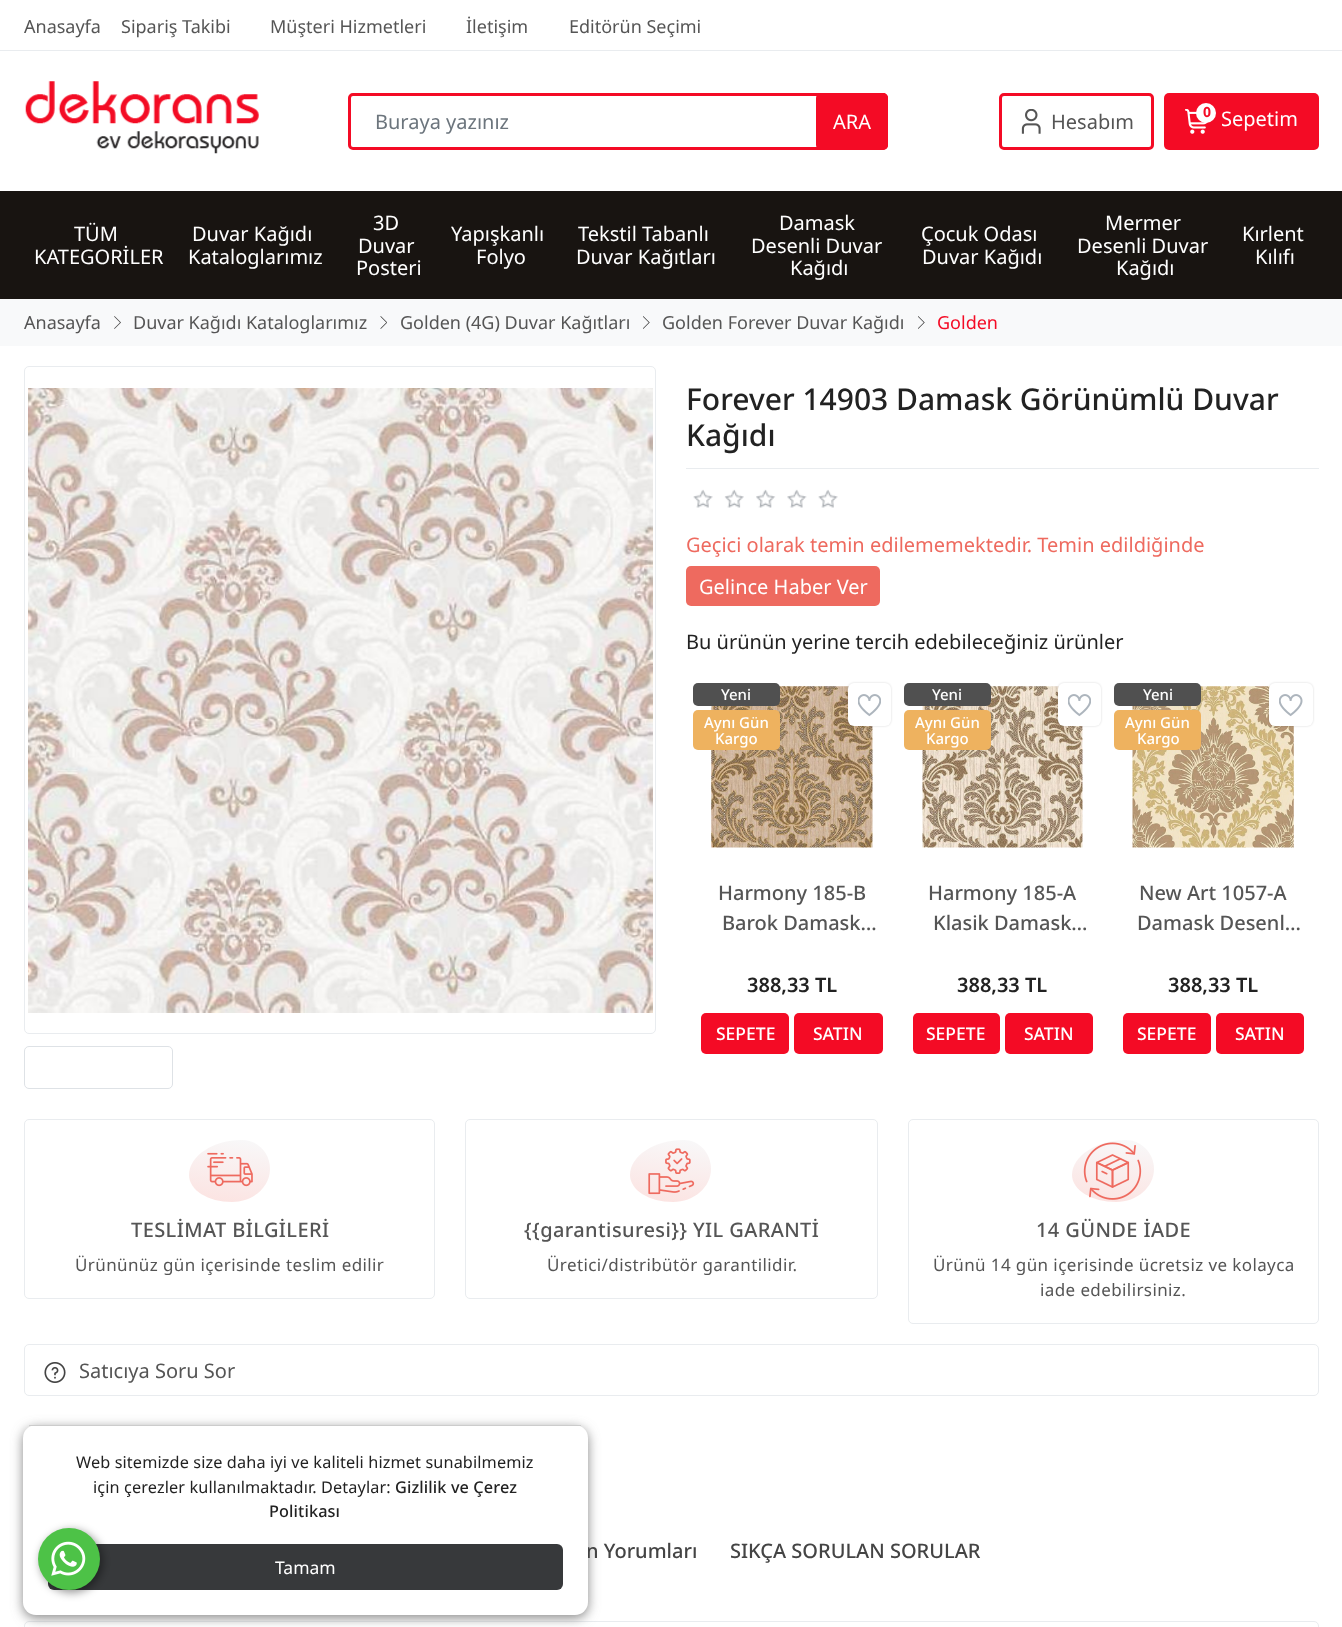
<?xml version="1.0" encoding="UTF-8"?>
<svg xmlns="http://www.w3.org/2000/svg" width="1342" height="1627">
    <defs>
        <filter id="blur1" x="-50%" y="-200%" width="200%" height="500%"><feGaussianBlur stdDeviation="6"/></filter>
        <filter id="blur2" x="-50%" y="-200%" width="200%" height="500%"><feGaussianBlur stdDeviation="1"/></filter>
        <linearGradient id="g1" gradientUnits="userSpaceOnUse" x1="235" y1="1134" x2="224" y2="1208"><stop offset="0" stop-color="#BF953F"/><stop offset="0" stop-color="#4D9668"/><stop offset="0" stop-color="#F8F9FA"/><stop offset="1" stop-color="#FCE2E0"/><stop offset="1" stop-color="#4D9668"/><stop offset="1" stop-color="#EE6A5F"/></linearGradient>
        <linearGradient id="g2" gradientUnits="userSpaceOnUse" x1="676" y1="1134" x2="665" y2="1208"><stop offset="0" stop-color="#BF953F"/><stop offset="0" stop-color="#4D9668"/><stop offset="0" stop-color="#F8F9FA"/><stop offset="1" stop-color="#FCE2E0"/><stop offset="1" stop-color="#4D9668"/><stop offset="1" stop-color="#EE6A5F"/></linearGradient>
        <linearGradient id="g3" gradientUnits="userSpaceOnUse" x1="1119" y1="1134" x2="1107" y2="1208"><stop offset="0" stop-color="#BF953F"/><stop offset="0" stop-color="#4D9668"/><stop offset="0" stop-color="#F8F9FA"/><stop offset="1" stop-color="#FCE2E0"/><stop offset="1" stop-color="#4D9668"/><stop offset="1" stop-color="#EE6A5F"/></linearGradient>
        <filter id="blur3" x="-50%" y="-200%" width="200%" height="500%"><feGaussianBlur stdDeviation="4"/></filter>
    </defs>
    <rect width="100%" height="100%" fill="#FFFFFF"/>
    <rect x="0" y="50" width="1342" height="1" fill="#E9ECEF"/>
    <text x="24" y="33" font-family="Noto Sans" font-size="18" fill="#555555">Anasayfa</text>
    <text x="121" y="33" font-family="Noto Sans" font-size="18" fill="#555555">Sipariş Takibi</text>
    <text x="270" y="33" font-family="Noto Sans" font-size="18" fill="#555555">Müşteri Hizmetleri</text>
    <text x="466" y="33" font-family="Noto Sans" font-size="18" fill="#555555">İletişim</text>
    <text x="569" y="33" font-family="Noto Sans" font-size="18" fill="#555555">Editörün Seçimi</text>
    <image x="25" y="81" width="234" height="73" href="img_01.png"/>
    <rect x="349.5" y="94.5" width="537" height="54" rx="3.5" fill="none" stroke="#F40B25" stroke-width="3"/>
    <text x="375" y="129" font-family="Noto Sans" font-size="20" fill="#6C757D">Buraya yazınız</text>
    <rect x="816" y="93" width="72" height="57" rx="5" fill="#F40B25"/>
    <text x="833" y="129" font-family="Noto Sans" font-size="20" fill="#FFFFFF">ARA</text>
    <rect x="1000.5" y="94.5" width="152" height="54" rx="3.5" fill="none" stroke="#F40B25" stroke-width="3"/>
    <image x="1021" y="109" width="20" height="25" href="img_02.png"/>
    <text x="1051" y="129" font-family="Noto Sans" font-size="20" fill="#555555">Hesabım</text>
    <rect x="1164" y="93" width="155" height="57" rx="5" fill="#F40B25"/>
    <image x="1185" y="109" width="23" height="25" href="img_03.png"/>
    <circle cx="1206" cy="113" r="10" fill="#FFFFFF"/>
    <text x="1203" y="117" font-family="Noto Sans" font-size="14" font-weight="700" fill="#F40B25">0</text>
    <text x="1221" y="126" font-family="Noto Sans" font-size="20" fill="#FFFFFF">Sepetim</text>
    <rect x="0" y="191" width="1342" height="108" fill="#181411"/>
    <text x="74" y="241" font-family="Noto Sans" font-size="20" fill="#FFFFFF">TÜM</text>
    <text x="34" y="264" font-family="Noto Sans" font-size="20" fill="#FFFFFF">KATEGORİLER</text>
    <text x="192" y="241" font-family="Noto Sans" font-size="20" fill="#FFFFFF">Duvar Kağıdı</text>
    <text x="188" y="264" font-family="Noto Sans" font-size="20" fill="#FFFFFF">Kataloglarımız</text>
    <text x="373" y="230" font-family="Noto Sans" font-size="20" fill="#FFFFFF">3D</text>
    <text x="358" y="253" font-family="Noto Sans" font-size="20" fill="#FFFFFF">Duvar</text>
    <text x="356" y="275" font-family="Noto Sans" font-size="20" fill="#FFFFFF">Posteri</text>
    <text x="451" y="241" font-family="Noto Sans" font-size="20" fill="#FFFFFF">Yapışkanlı</text>
    <text x="476" y="264" font-family="Noto Sans" font-size="20" fill="#FFFFFF">Folyo</text>
    <text x="578" y="241" font-family="Noto Sans" font-size="20" fill="#FFFFFF">Tekstil Tabanlı</text>
    <text x="576" y="264" font-family="Noto Sans" font-size="20" fill="#FFFFFF">Duvar Kağıtları</text>
    <text x="779" y="230" font-family="Noto Sans" font-size="20" fill="#FFFFFF">Damask</text>
    <text x="751" y="253" font-family="Noto Sans" font-size="20" fill="#FFFFFF">Desenli Duvar</text>
    <text x="790" y="275" font-family="Noto Sans" font-size="20" fill="#FFFFFF">Kağıdı</text>
    <text x="921" y="241" font-family="Noto Sans" font-size="20" fill="#FFFFFF">Çocuk Odası</text>
    <text x="922" y="264" font-family="Noto Sans" font-size="20" fill="#FFFFFF">Duvar Kağıdı</text>
    <text x="1105" y="230" font-family="Noto Sans" font-size="20" fill="#FFFFFF">Mermer</text>
    <text x="1077" y="253" font-family="Noto Sans" font-size="20" fill="#FFFFFF">Desenli Duvar</text>
    <text x="1116" y="275" font-family="Noto Sans" font-size="20" fill="#FFFFFF">Kağıdı</text>
    <text x="1242" y="241" font-family="Noto Sans" font-size="20" fill="#FFFFFF">Kırlent</text>
    <text x="1255" y="264" font-family="Noto Sans" font-size="20" fill="#FFFFFF">Kılıfı</text>
    <rect x="0" y="299" width="1342" height="47" fill="#F8F9FA"/>
    <text x="24" y="329" font-family="Noto Sans" font-size="18" fill="#555555">Anasayfa</text>
    <image x="114" y="316" width="7" height="13" href="img_04.png"/>
    <text x="133" y="329" font-family="Noto Sans" font-size="18" fill="#555555">Duvar Kağıdı Kataloglarımız</text>
    <image x="380" y="316" width="7" height="13" href="img_05.png"/>
    <text x="400" y="329" font-family="Noto Sans" font-size="18" fill="#555555">Golden (4G) Duvar Kağıtları</text>
    <image x="643" y="316" width="7" height="13" href="img_06.png"/>
    <text x="662" y="329" font-family="Noto Sans" font-size="18" fill="#555555">Golden Forever Duvar Kağıdı</text>
    <image x="918" y="316" width="7" height="13" href="img_06.png"/>
    <text x="937" y="329" font-family="Noto Sans" font-size="18" fill="#F40B25">Golden</text>
    <rect x="24.5" y="1621.5" width="1294" height="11" rx="4.5" fill="none" stroke="#E9ECEF"/>
    <rect x="23" y="1428" width="565" height="190" rx="13" fill="#888888" filter="url(#blur1)"/>
    <text x="586" y="1558" font-family="Noto Sans" font-size="20" font-weight="500" fill="#444444">n Yorumları</text>
    <rect x="23" y="1425" width="565" height="190" rx="13" fill="#FFFFFF"/>
    <rect x="29" y="1425" width="552" height="1" fill="#CCCCCC"/>
    <text x="76" y="1468" font-family="Noto Sans" font-size="16.25" letter-spacing="0.12" fill="#222222">Web sitemizde size daha iyi ve kaliteli hizmet sunabilmemiz</text>
    <text x="93" y="1493" font-family="Noto Sans" font-size="16.25" letter-spacing="0.12" fill="#222222">için çerezler kullanılmaktadır. Detaylar:</text>
    <text x="395" y="1493" font-family="Noto Sans" font-size="16.25" font-weight="500" letter-spacing="0.12" fill="#222222">Gizlilik ve Çerez</text>
    <text x="269" y="1517" font-family="Noto Sans" font-size="16.25" font-weight="500" letter-spacing="0.12" fill="#222222">Politikası</text>
    <rect x="48" y="1544" width="515" height="46" rx="6" fill="#37393B"/>
    <text x="275" y="1574" font-family="Noto Sans" font-size="17.5" fill="#FFFFFF">Tamam</text>
    <rect x="24.5" y="366.5" width="631" height="667" rx="4.5" fill="none" stroke="#E9ECEF"/>
    <image x="28" y="388" width="625" height="625" href="img_07.png"/>
    <rect x="24.5" y="1046.5" width="148" height="42" rx="4.5" fill="none" stroke="#DEE2E6"/>
    <rect x="686" y="468" width="633" height="1" fill="#E9ECEF"/>
    <text font-family="Noto Sans" font-size="30" font-weight="500" fill="#222222">
        <tspan x="686" y="410">Forever 14903 Damask Görünümlü Duvar</tspan>
        <tspan x="686" y="446">Kağıdı</tspan>
    </text>
    <image x="693" y="489" width="145" height="19" href="img_08.png"/>
    <text x="686" y="552" font-family="Noto Sans" font-size="20" fill="#EE6A5F">Geçici olarak temin edilememektedir. Temin edildiğinde</text>
    <rect x="686" y="566" width="194" height="40" rx="5" fill="#EE6A5F"/>
    <text x="699" y="594" font-family="Noto Sans" font-size="20" fill="#FFFFFF">Gelince Haber Ver</text>
    <text x="686" y="649" font-family="Noto Sans" font-size="20" fill="#222222">Bu ürünün yerine tercih edebileceğiniz ürünler</text>
    <image x="711" y="686" width="162" height="162" href="img_10.png"/>
    <rect x="848" y="683" width="43" height="43" rx="6" fill="#000000" fill-opacity="0.15" filter="url(#blur2)"/>
    <rect x="848" y="683" width="43" height="43" rx="6" fill="#FFFFFF"/>
    <image x="858" y="694" width="23" height="23" href="img_09.png"/>
    <rect x="693" y="683" width="87" height="23" rx="5" fill="#505050"/>
    <text x="721" y="700" font-family="Noto Sans" font-size="15" font-weight="500" fill="#FFFFFF">Yeni</text>
    <rect x="693" y="710" width="87" height="40" rx="5" fill="#EEB25F"/>
    <text x="704" y="728" font-family="Noto Sans" font-size="15" font-weight="500" fill="#FFFFFF">Aynı Gün</text>
    <text x="715" y="744" font-family="Noto Sans" font-size="15" font-weight="500" fill="#FFFFFF">Kargo</text>
    <text x="718" y="900" font-family="Noto Sans" font-size="20" font-weight="500" fill="#555555">Harmony 185-B</text>
    <text x="722" y="930" font-family="Noto Sans" font-size="20" font-weight="500" fill="#555555">Barok Damask…</text>
    <text x="747" y="992" font-family="Noto Sans" font-size="20" font-weight="600" fill="#222222">388,33 TL</text>
    <rect x="701" y="1013" width="88" height="41" rx="5" fill="#F40B25"/>
    <text x="716" y="1040" font-family="Noto Sans" font-size="17.5" font-weight="500" fill="#FFFFFF">SEPETE</text>
    <rect x="794" y="1013" width="89" height="41" rx="5" fill="#F40B25"/>
    <text x="813" y="1040" font-family="Noto Sans" font-size="17.5" font-weight="500" fill="#FFFFFF">SATIN</text>
    <image x="922" y="686" width="161" height="162" href="img_11.png"/>
    <rect x="1058" y="683" width="43" height="43" rx="6" fill="#000000" fill-opacity="0.15" filter="url(#blur2)"/>
    <rect x="1058" y="683" width="43" height="43" rx="6" fill="#FFFFFF"/>
    <image x="1068" y="694" width="23" height="23" href="img_09.png"/>
    <rect x="904" y="683" width="87" height="23" rx="5" fill="#505050"/>
    <text x="932" y="700" font-family="Noto Sans" font-size="15" font-weight="500" fill="#FFFFFF">Yeni</text>
    <rect x="904" y="710" width="87" height="40" rx="5" fill="#EEB25F"/>
    <text x="915" y="728" font-family="Noto Sans" font-size="15" font-weight="500" fill="#FFFFFF">Aynı Gün</text>
    <text x="926" y="744" font-family="Noto Sans" font-size="15" font-weight="500" fill="#FFFFFF">Kargo</text>
    <text x="928" y="900" font-family="Noto Sans" font-size="20" font-weight="500" fill="#555555">Harmony 185-A</text>
    <text x="933" y="930" font-family="Noto Sans" font-size="20" font-weight="500" fill="#555555">Klasik Damask…</text>
    <text x="957" y="992" font-family="Noto Sans" font-size="20" font-weight="600" fill="#222222">388,33 TL</text>
    <rect x="913" y="1013" width="87" height="41" rx="5" fill="#F40B25"/>
    <text x="926" y="1040" font-family="Noto Sans" font-size="17.5" font-weight="500" fill="#FFFFFF">SEPETE</text>
    <rect x="1005" y="1013" width="88" height="41" rx="5" fill="#F40B25"/>
    <text x="1024" y="1040" font-family="Noto Sans" font-size="17.5" font-weight="500" fill="#FFFFFF">SATIN</text>
    <image x="1132" y="686" width="162" height="162" href="img_13.png"/>
    <rect x="1269" y="683" width="44" height="43" rx="6" fill="#000000" fill-opacity="0.15" filter="url(#blur2)"/>
    <rect x="1269" y="683" width="44" height="43" rx="6" fill="#FFFFFF"/>
    <image x="1279" y="694" width="24" height="23" href="img_12.png"/>
    <rect x="1114" y="683" width="87" height="23" rx="5" fill="#505050"/>
    <text x="1143" y="700" font-family="Noto Sans" font-size="15" font-weight="500" fill="#FFFFFF">Yeni</text>
    <rect x="1114" y="710" width="87" height="40" rx="5" fill="#EEB25F"/>
    <text x="1125" y="728" font-family="Noto Sans" font-size="15" font-weight="500" fill="#FFFFFF">Aynı Gün</text>
    <text x="1137" y="744" font-family="Noto Sans" font-size="15" font-weight="500" fill="#FFFFFF">Kargo</text>
    <text x="1139" y="900" font-family="Noto Sans" font-size="20" font-weight="500" fill="#555555">New Art 1057-A</text>
    <text x="1137" y="930" font-family="Noto Sans" font-size="20" font-weight="500" fill="#555555">Damask Desenl…</text>
    <text x="1168" y="992" font-family="Noto Sans" font-size="20" font-weight="600" fill="#222222">388,33 TL</text>
    <rect x="1123" y="1013" width="88" height="41" rx="5" fill="#F40B25"/>
    <text x="1137" y="1040" font-family="Noto Sans" font-size="17.5" font-weight="500" fill="#FFFFFF">SEPETE</text>
    <rect x="1216" y="1013" width="88" height="41" rx="5" fill="#F40B25"/>
    <text x="1235" y="1040" font-family="Noto Sans" font-size="17.5" font-weight="500" fill="#FFFFFF">SATIN</text>
    <rect x="24.5" y="1119.5" width="410" height="179" rx="4.5" fill="none" stroke="#E9ECEF"/>
    <path d="M 242 1140 C 258 1140 270 1153 270 1169 C 270 1187 253 1202 232 1202 C 208 1202 189 1190 189 1175 C 189 1156 213 1140 242 1140 Z" fill="url(#g1)"/>
    <image x="207" y="1152" width="46" height="35" href="img_14.png"/>
    <text x="131" y="1237" font-family="Noto Sans" font-size="20" font-weight="500" letter-spacing="0.4" fill="#555555">TESLİMAT BİLGİLERİ</text>
    <text x="75" y="1271" font-family="Noto Sans" font-size="17" letter-spacing="0.4" fill="#555555">Ürününüz gün içerisinde teslim edilir</text>
    <rect x="465.5" y="1119.5" width="412" height="179" rx="4.5" fill="none" stroke="#E9ECEF"/>
    <path d="M 684 1140 C 699 1140 711 1153 711 1169 C 711 1187 694 1202 673 1202 C 649 1202 630 1190 630 1175 C 630 1156 654 1140 684 1140 Z" fill="url(#g2)"/>
    <image x="648" y="1148" width="47" height="47" href="img_15.png"/>
    <text x="524" y="1237" font-family="Noto Sans" font-size="20" font-weight="500" letter-spacing="0.4" fill="#555555">{{garantisuresi}} YIL GARANTİ</text>
    <text x="547" y="1271" font-family="Noto Sans" font-size="17" letter-spacing="0.4" fill="#555555">Üretici/distribütör garantilidir.</text>
    <rect x="908.5" y="1119.5" width="410" height="204" rx="4.5" fill="none" stroke="#E9ECEF"/>
    <path d="M 1126 1140 C 1141 1140 1154 1153 1154 1169 C 1154 1187 1137 1202 1116 1202 C 1092 1202 1072 1190 1072 1175 C 1072 1156 1097 1140 1126 1140 Z" fill="url(#g3)"/>
    <image x="1083" y="1142" width="59" height="58" href="img_16.png"/>
    <text x="1036" y="1237" font-family="Noto Sans" font-size="20" font-weight="500" letter-spacing="0.4" fill="#555555">14 GÜNDE İADE</text>
    <text x="933" y="1271" font-family="Noto Sans" font-size="17" letter-spacing="0.4" fill="#555555">Ürünü 14 gün içerisinde ücretsiz ve kolayca</text>
    <text x="1040" y="1296" font-family="Noto Sans" font-size="17" letter-spacing="0.4" fill="#555555">iade edebilirsiniz.</text>
    <rect x="24.5" y="1344.5" width="1294" height="51" rx="4.5" fill="none" stroke="#E9ECEF"/>
    <image x="44" y="1362" width="22" height="21" href="img_17.png"/>
    <text x="79" y="1378" font-family="Noto Sans" font-size="20" fill="#555555">Satıcıya Soru Sor</text>
    <text x="730" y="1558" font-family="Noto Sans" font-size="20" font-weight="500" fill="#444444">SIKÇA SORULAN SORULAR</text>
    <rect x="40" y="1530" width="63" height="63" rx="31.5" fill="#000000" fill-opacity="0.4" filter="url(#blur3)"/>
    <circle cx="69" cy="1559" r="31" fill="#4DC247"/>
    <image x="51" y="1541" width="35" height="35" href="img_18.png"/>
</svg>
